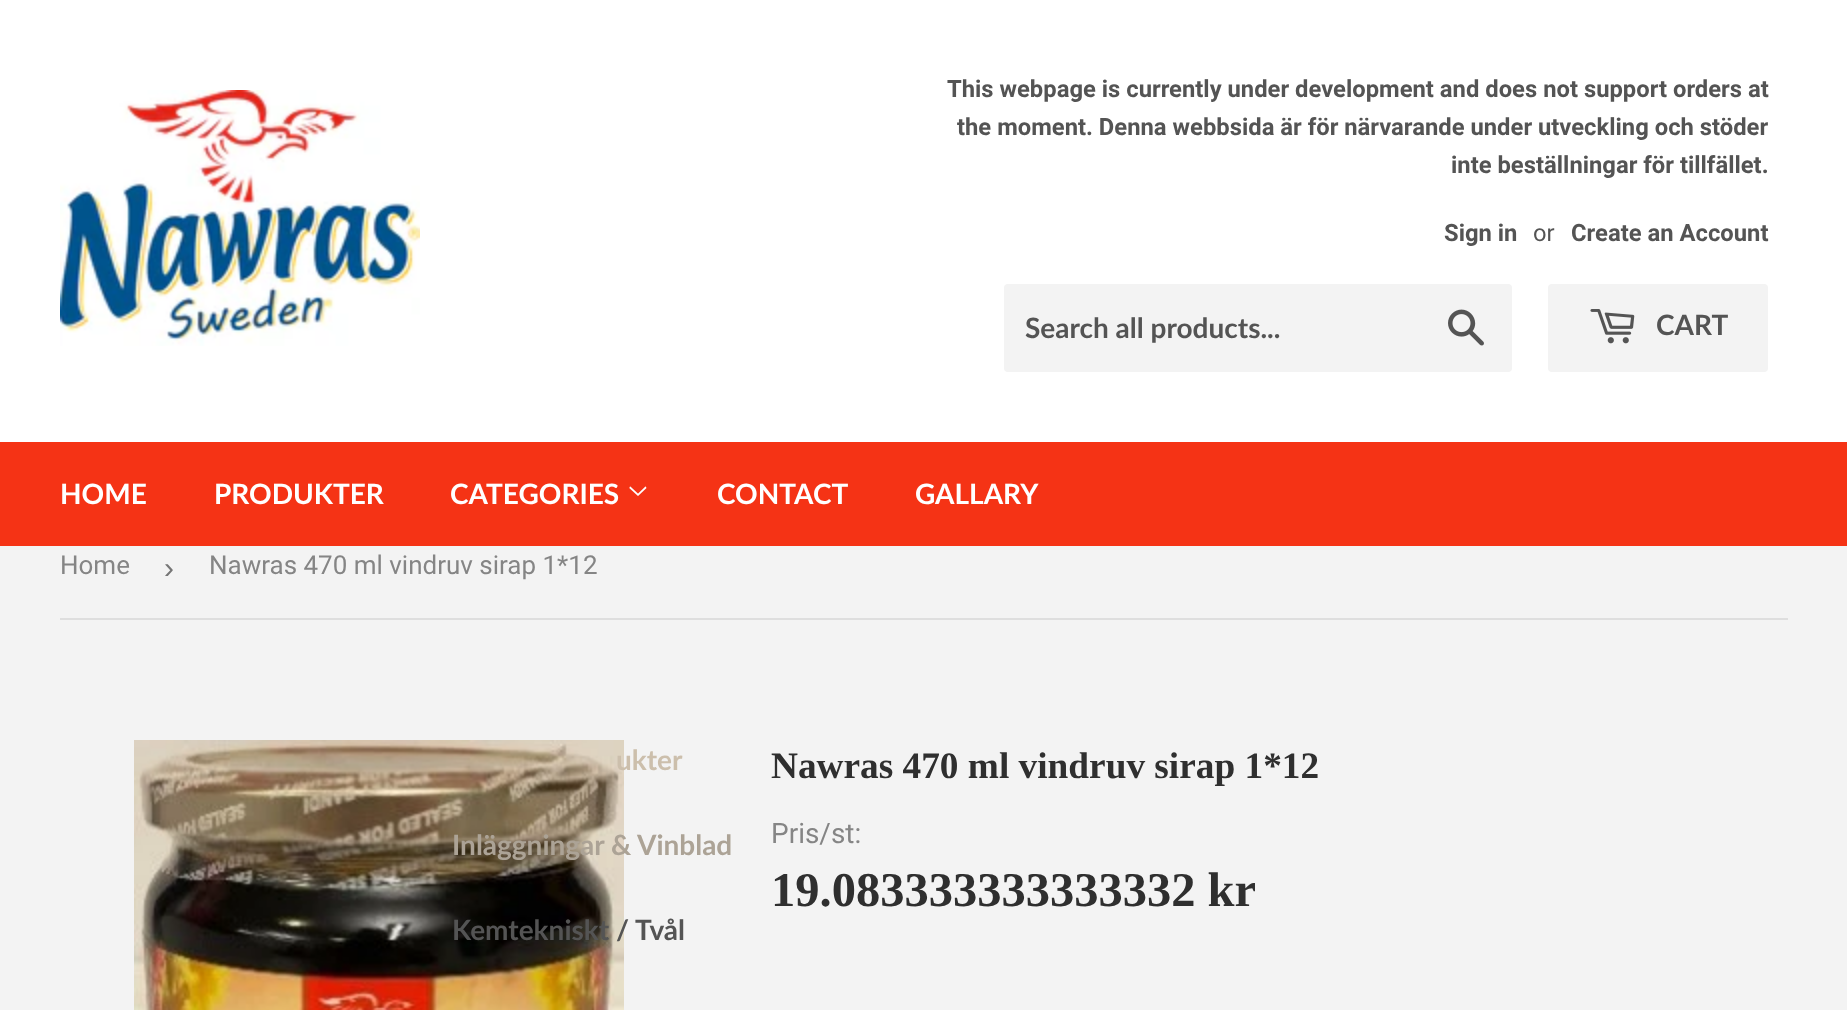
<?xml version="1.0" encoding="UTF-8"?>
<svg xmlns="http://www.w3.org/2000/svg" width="1847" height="1010">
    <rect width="100%" height="100%" fill="#F3F3F3"/>
    <rect x="0" y="0" width="1847" height="442" fill="#FFFFFF"/>
    <image x="60" y="90" width="360" height="256" href="img_01.png"/>
    <text x="947" y="97" font-family="Roboto" font-size="23.8" font-weight="700" fill="#545454">This webpage is currently under development and does not support orders at</text>
    <text x="957" y="135" font-family="Roboto" font-size="23.8" font-weight="700" fill="#545454">the moment. Denna webbsida är för närvarande under utveckling och stöder</text>
    <text x="1451" y="173" font-family="Roboto" font-size="23.8" font-weight="700" fill="#545454">inte beställningar för tillfället.</text>
    <text x="1444" y="241" font-family="Roboto" font-size="23.8" font-weight="700" fill="#545454">Sign in</text>
    <text x="1533" y="241" font-family="Roboto" font-size="23.8" fill="#545454">or</text>
    <text x="1571" y="241" font-family="Roboto" font-size="23.8" font-weight="700" fill="#545454">Create an Account</text>
    <rect x="1004" y="284" width="508" height="88" rx="4" fill="#F3F3F3"/>
    <text x="1025" y="338" font-family="Lato" font-size="28" font-weight="700" fill="#545454">Search all products...</text>
    <image x="1448" y="309" width="36" height="37" href="img_02.png"/>
    <rect x="1548" y="284" width="220" height="88" rx="4" fill="#F3F3F3"/>
    <image x="1590" y="309" width="45" height="35" href="img_03.png"/>
    <text x="1656" y="335" font-family="Lato" font-size="28" font-weight="700" fill="#545454">CART</text>
    <rect x="0" y="442" width="1847" height="104" fill="#F53315"/>
    <text x="60" y="504" font-family="Lato" font-size="28" font-weight="700" fill="#FFFFFF">HOME</text>
    <text x="214" y="504" font-family="Lato" font-size="28" font-weight="700" fill="#FFFFFF">PRODUKTER</text>
    <text x="450" y="504" font-family="Lato" font-size="28" font-weight="700" fill="#FFFFFF">CATEGORIES</text>
    <image x="629" y="486" width="18" height="10" href="img_04.png"/>
    <image x="134" y="740" width="490" height="270" href="img_05.png"/>
    <text x="616" y="770" font-family="Lato" font-size="28" font-weight="700" fill="#CCBFAC">ukter</text>
    <text x="452" y="855" font-family="Lato" font-size="28" font-weight="700" fill="#ACA396">Inläggningar &amp; Vinblad</text>
    <text x="452" y="940" font-family="Lato" font-size="28" font-weight="700" fill="#545454">Kemtekniskt / Tvål</text>
    <text x="717" y="504" font-family="Lato" font-size="28" font-weight="700" fill="#FFFFFF">CONTACT</text>
    <text x="915" y="504" font-family="Lato" font-size="28" font-weight="700" fill="#FFFFFF">GALLARY</text>
    <rect x="60" y="618" width="1728" height="2" fill="#DEDEDE"/>
    <text x="60" y="574" font-family="Roboto" font-size="26" fill="#858585">Home</text>
    <text x="164" y="578" font-family="Liberation Sans" font-size="30" fill="#767676">›</text>
    <text x="209" y="574" font-family="Roboto" font-size="26" fill="#858585">Nawras 470 ml vindruv sirap 1*12</text>
    <text x="771" y="778" font-family="Liberation Serif" font-size="37.3" font-weight="700" fill="#2F2F2F">Nawras 470 ml vindruv sirap 1*12</text>
    <text x="771" y="843" font-family="Roboto" font-size="28" fill="#858585">Pris/st:</text>
    <text x="771" y="906" font-family="Liberation Serif" font-size="48.5" font-weight="700" fill="#2F2F2F">19.083333333333332 kr</text>
</svg>
